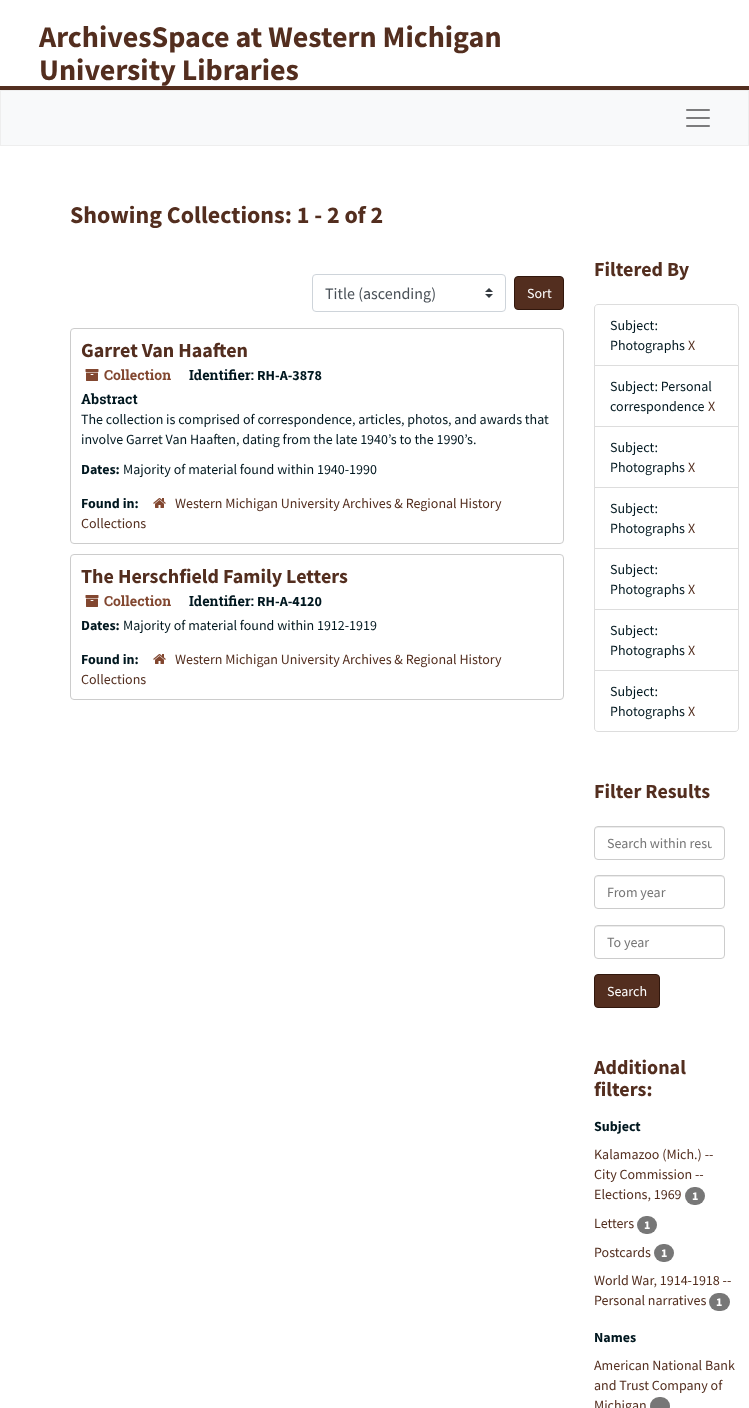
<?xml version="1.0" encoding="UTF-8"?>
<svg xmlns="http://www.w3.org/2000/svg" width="749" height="1408">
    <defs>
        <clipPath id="clip1"><rect x="607" y="834" width="105" height="18"/></clipPath>
    </defs>
    <rect width="100%" height="100%" fill="#FFFFFF"/>
    <rect x="0" y="86" width="749" height="4" fill="#532E1F"/>
    <text font-family="Source Sans Pro" font-size="30" font-weight="700" fill="#532E1F">
        <tspan x="39" y="47">ArchivesSpace at Western Michigan</tspan>
        <tspan x="39" y="80">University Libraries</tspan>
    </text>
    <rect x="0.5" y="90.5" width="748" height="55" fill="#F8F9FA" stroke="#EEEEEE"/>
    <image x="686" y="109" width="24" height="18" href="img_01.png"/>
    <text x="70" y="223" font-family="Source Sans Pro" font-size="24" font-weight="700" fill="#532E1F">Showing Collections: 1 - 2 of 2</text>
    <image x="485" y="288" width="8" height="10" href="img_02.png"/>
    <rect x="312.5" y="274.5" width="193" height="37" rx="3.5" fill="none" stroke="#CED4DA"/>
    <text x="325" y="299" font-family="Source Sans Pro" font-size="16" fill="#495057">Title (ascending)</text>
    <rect x="514.5" y="276.5" width="49" height="33" rx="3.5" fill="#532E1F" stroke="#31170D"/>
    <text x="527" y="298" font-family="Source Sans Pro" font-size="14" fill="#FFFFFF">Sort</text>
    <rect x="70.5" y="328.5" width="493" height="215" rx="3.5" fill="none" stroke="#CCCCCC"/>
    <text x="81" y="357" font-family="Source Sans Pro" font-size="20" font-weight="700" fill="#532E1F">Garret Van Haaften</text>
    <image x="85" y="369" width="14" height="12" href="img_03.png"/>
    <text x="104" y="380" font-family="Roboto Slab" font-size="14" font-weight="700" fill="#824730">Collection</text>
    <text x="189" y="380" font-family="Roboto Slab" font-size="14" font-weight="700" fill="#00171F">Identifier:</text>
    <text x="257" y="380" font-family="Source Sans Pro" font-size="14" font-weight="700" fill="#00171F">RH-A-3878</text>
    <text x="81" y="404" font-family="Roboto Slab" font-size="14" font-weight="700" fill="#00171F">Abstract</text>
    <text font-family="Source Sans Pro" font-size="14" fill="#00171F">
        <tspan x="81" y="424">The collection is comprised of correspondence, articles, photos, and awards that</tspan>
        <tspan x="81" y="444">involve Garret Van Haaften, dating from the late 1940’s to the 1990’s.</tspan>
    </text>
    <text x="81" y="474" font-family="Source Sans Pro" font-size="14" font-weight="700" fill="#00171F">Dates:</text>
    <text x="123" y="474" font-family="Source Sans Pro" font-size="14" fill="#00171F">Majority of material found within 1940-1990</text>
    <text x="81" y="508" font-family="Source Sans Pro" font-size="14" font-weight="700" fill="#00171F">Found in:</text>
    <image x="153" y="498" width="13" height="10" href="img_04.png"/>
    <text x="175" y="508" font-family="Source Sans Pro" font-size="14" fill="#532E1F">Western Michigan University Archives &amp; Regional History</text>
    <text x="81" y="528" font-family="Source Sans Pro" font-size="14" fill="#532E1F">Collections</text>
    <rect x="70.5" y="554.5" width="493" height="145" rx="3.5" fill="none" stroke="#CCCCCC"/>
    <text x="81" y="583" font-family="Source Sans Pro" font-size="20" font-weight="700" fill="#532E1F">The Herschfield Family Letters</text>
    <image x="85" y="595" width="14" height="12" href="img_03.png"/>
    <text x="104" y="606" font-family="Roboto Slab" font-size="14" font-weight="700" fill="#824730">Collection</text>
    <text x="189" y="606" font-family="Roboto Slab" font-size="14" font-weight="700" fill="#00171F">Identifier:</text>
    <text x="257" y="606" font-family="Source Sans Pro" font-size="14" font-weight="700" fill="#00171F">RH-A-4120</text>
    <text x="81" y="630" font-family="Source Sans Pro" font-size="14" font-weight="700" fill="#00171F">Dates:</text>
    <text x="123" y="630" font-family="Source Sans Pro" font-size="14" fill="#00171F">Majority of material found within 1912-1919</text>
    <text x="81" y="664" font-family="Source Sans Pro" font-size="14" font-weight="700" fill="#00171F">Found in:</text>
    <image x="153" y="654" width="13" height="10" href="img_04.png"/>
    <text x="175" y="664" font-family="Source Sans Pro" font-size="14" fill="#532E1F">Western Michigan University Archives &amp; Regional History</text>
    <text x="81" y="684" font-family="Source Sans Pro" font-size="14" fill="#532E1F">Collections</text>
    <text x="594" y="276" font-family="Source Sans Pro" font-size="20" font-weight="700" fill="#532E1F">Filtered By</text>
    <path d="M 598 304.5 H 735 C 737 304.5 738.5 306 738.5 308 V 365.5 H 594.5 V 308 C 594.5 306 596 304.5 598 304.5 Z" fill="none" stroke="#DDDDDD"/>
    <text font-family="Source Sans Pro" font-size="14" fill="#00171F">
        <tspan x="610" y="330">Subject:</tspan>
        <tspan x="610" y="350">Photographs</tspan>
    </text>
    <text x="688" y="350" font-family="Source Sans Pro" font-size="14" fill="#532E1F">X</text>
    <rect x="594.5" y="365.5" width="144" height="61" fill="none" stroke="#DDDDDD"/>
    <text font-family="Source Sans Pro" font-size="14" fill="#00171F">
        <tspan x="610" y="391">Subject: Personal</tspan>
        <tspan x="610" y="411">correspondence</tspan>
    </text>
    <text x="708" y="411" font-family="Source Sans Pro" font-size="14" fill="#532E1F">X</text>
    <rect x="594.5" y="426.5" width="144" height="61" fill="none" stroke="#DDDDDD"/>
    <text font-family="Source Sans Pro" font-size="14" fill="#00171F">
        <tspan x="610" y="452">Subject:</tspan>
        <tspan x="610" y="472">Photographs</tspan>
    </text>
    <text x="688" y="472" font-family="Source Sans Pro" font-size="14" fill="#532E1F">X</text>
    <rect x="594.5" y="487.5" width="144" height="61" fill="none" stroke="#DDDDDD"/>
    <text font-family="Source Sans Pro" font-size="14" fill="#00171F">
        <tspan x="610" y="513">Subject:</tspan>
        <tspan x="610" y="533">Photographs</tspan>
    </text>
    <text x="688" y="533" font-family="Source Sans Pro" font-size="14" fill="#532E1F">X</text>
    <rect x="594.5" y="548.5" width="144" height="61" fill="none" stroke="#DDDDDD"/>
    <text font-family="Source Sans Pro" font-size="14" fill="#00171F">
        <tspan x="610" y="574">Subject:</tspan>
        <tspan x="610" y="594">Photographs</tspan>
    </text>
    <text x="688" y="594" font-family="Source Sans Pro" font-size="14" fill="#532E1F">X</text>
    <rect x="594.5" y="609.5" width="144" height="61" fill="none" stroke="#DDDDDD"/>
    <text font-family="Source Sans Pro" font-size="14" fill="#00171F">
        <tspan x="610" y="635">Subject:</tspan>
        <tspan x="610" y="655">Photographs</tspan>
    </text>
    <text x="688" y="655" font-family="Source Sans Pro" font-size="14" fill="#532E1F">X</text>
    <path d="M 594.5 670.5 H 738.5 V 728 C 738.5 730 737 731.5 735 731.5 H 598 C 596 731.5 594.5 730 594.5 728 Z" fill="#FFFFFF" stroke="#DDDDDD"/>
    <text font-family="Source Sans Pro" font-size="14" fill="#00171F">
        <tspan x="610" y="696">Subject:</tspan>
        <tspan x="610" y="716">Photographs</tspan>
    </text>
    <text x="688" y="716" font-family="Source Sans Pro" font-size="14" fill="#532E1F">X</text>
    <text x="594" y="798" font-family="Source Sans Pro" font-size="20" font-weight="700" fill="#532E1F">Filter Results</text>
    <path d="M 598 828 H 721 C 723 828 724 829 724 831 C 724 829 724 827 722 827 H 598 C 596 827 595 829 595 831 C 595 829 596 828 598 828 Z" fill="#ECECEC"/>
    <rect x="594.5" y="826.5" width="130" height="33" rx="3.5" fill="none" stroke="#CCCCCC"/>
    <g clip-path="url(#clip1)">
        <text x="607" y="848" font-family="Source Sans Pro" font-size="14" fill="#767676">Search within resu</text>
    </g>
    <path d="M 598 877 H 721 C 723 877 724 878 724 880 C 724 878 724 876 722 876 H 598 C 596 876 595 878 595 880 C 595 878 596 877 598 877 Z" fill="#ECECEC"/>
    <rect x="594.5" y="875.5" width="130" height="33" rx="3.5" fill="none" stroke="#CCCCCC"/>
    <text x="607" y="897" font-family="Source Sans Pro" font-size="14" fill="#767676">From year</text>
    <path d="M 598 927 H 721 C 723 927 724 928 724 930 C 724 928 724 926 722 926 H 598 C 596 926 595 928 595 930 C 595 928 596 927 598 927 Z" fill="#ECECEC"/>
    <rect x="594.5" y="925.5" width="130" height="33" rx="3.5" fill="none" stroke="#CCCCCC"/>
    <text x="607" y="947" font-family="Source Sans Pro" font-size="14" fill="#767676">To year</text>
    <rect x="594.5" y="974.5" width="65" height="33" rx="3.5" fill="#532E1F" stroke="#31170D"/>
    <text x="607" y="996" font-family="Source Sans Pro" font-size="14" fill="#FFFFFF">Search</text>
    <text font-family="Source Sans Pro" font-size="20" font-weight="700" fill="#532E1F">
        <tspan x="594" y="1074">Additional</tspan>
        <tspan x="594" y="1096">filters:</tspan>
    </text>
    <text x="594" y="1131" font-family="Source Sans Pro" font-size="14" font-weight="700" fill="#00171F">Subject</text>
    <text font-family="Source Sans Pro" font-size="14" fill="#532E1F">
        <tspan x="594" y="1159">Kalamazoo (Mich.) --</tspan>
        <tspan x="594" y="1179">City Commission --</tspan>
        <tspan x="594" y="1199">Elections, 1969</tspan>
    </text>
    <rect x="685" y="1187" width="20" height="18" rx="9" fill="#777777"/>
    <text x="692" y="1200" font-family="Source Sans Pro" font-size="12" font-weight="700" fill="#FFFFFF">1</text>
    <text x="594" y="1228" font-family="Source Sans Pro" font-size="14" fill="#532E1F">Letters</text>
    <rect x="637" y="1216" width="20" height="18" rx="9" fill="#777777"/>
    <text x="644" y="1229" font-family="Source Sans Pro" font-size="12" font-weight="700" fill="#FFFFFF">1</text>
    <text x="594" y="1257" font-family="Source Sans Pro" font-size="14" fill="#532E1F">Postcards</text>
    <rect x="654" y="1244" width="20" height="18" rx="9" fill="#777777"/>
    <text x="661" y="1257" font-family="Source Sans Pro" font-size="12" font-weight="700" fill="#FFFFFF">1</text>
    <text font-family="Source Sans Pro" font-size="14" fill="#532E1F">
        <tspan x="594" y="1285">World War, 1914-1918 --</tspan>
        <tspan x="594" y="1305">Personal narratives</tspan>
    </text>
    <rect x="709" y="1293" width="21" height="18" rx="9" fill="#777777"/>
    <text x="716" y="1306" font-family="Source Sans Pro" font-size="12" font-weight="700" fill="#FFFFFF">1</text>
    <text x="594" y="1342" font-family="Source Sans Pro" font-size="14" font-weight="700" fill="#00171F">Names</text>
    <text font-family="Source Sans Pro" font-size="14" fill="#532E1F">
        <tspan x="594" y="1370">American National Bank</tspan>
        <tspan x="594" y="1390">and Trust Company of</tspan>
        <tspan x="594" y="1410">Michigan</tspan>
    </text>
    <rect x="650" y="1397" width="20" height="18" rx="9" fill="#777777"/>
</svg>
